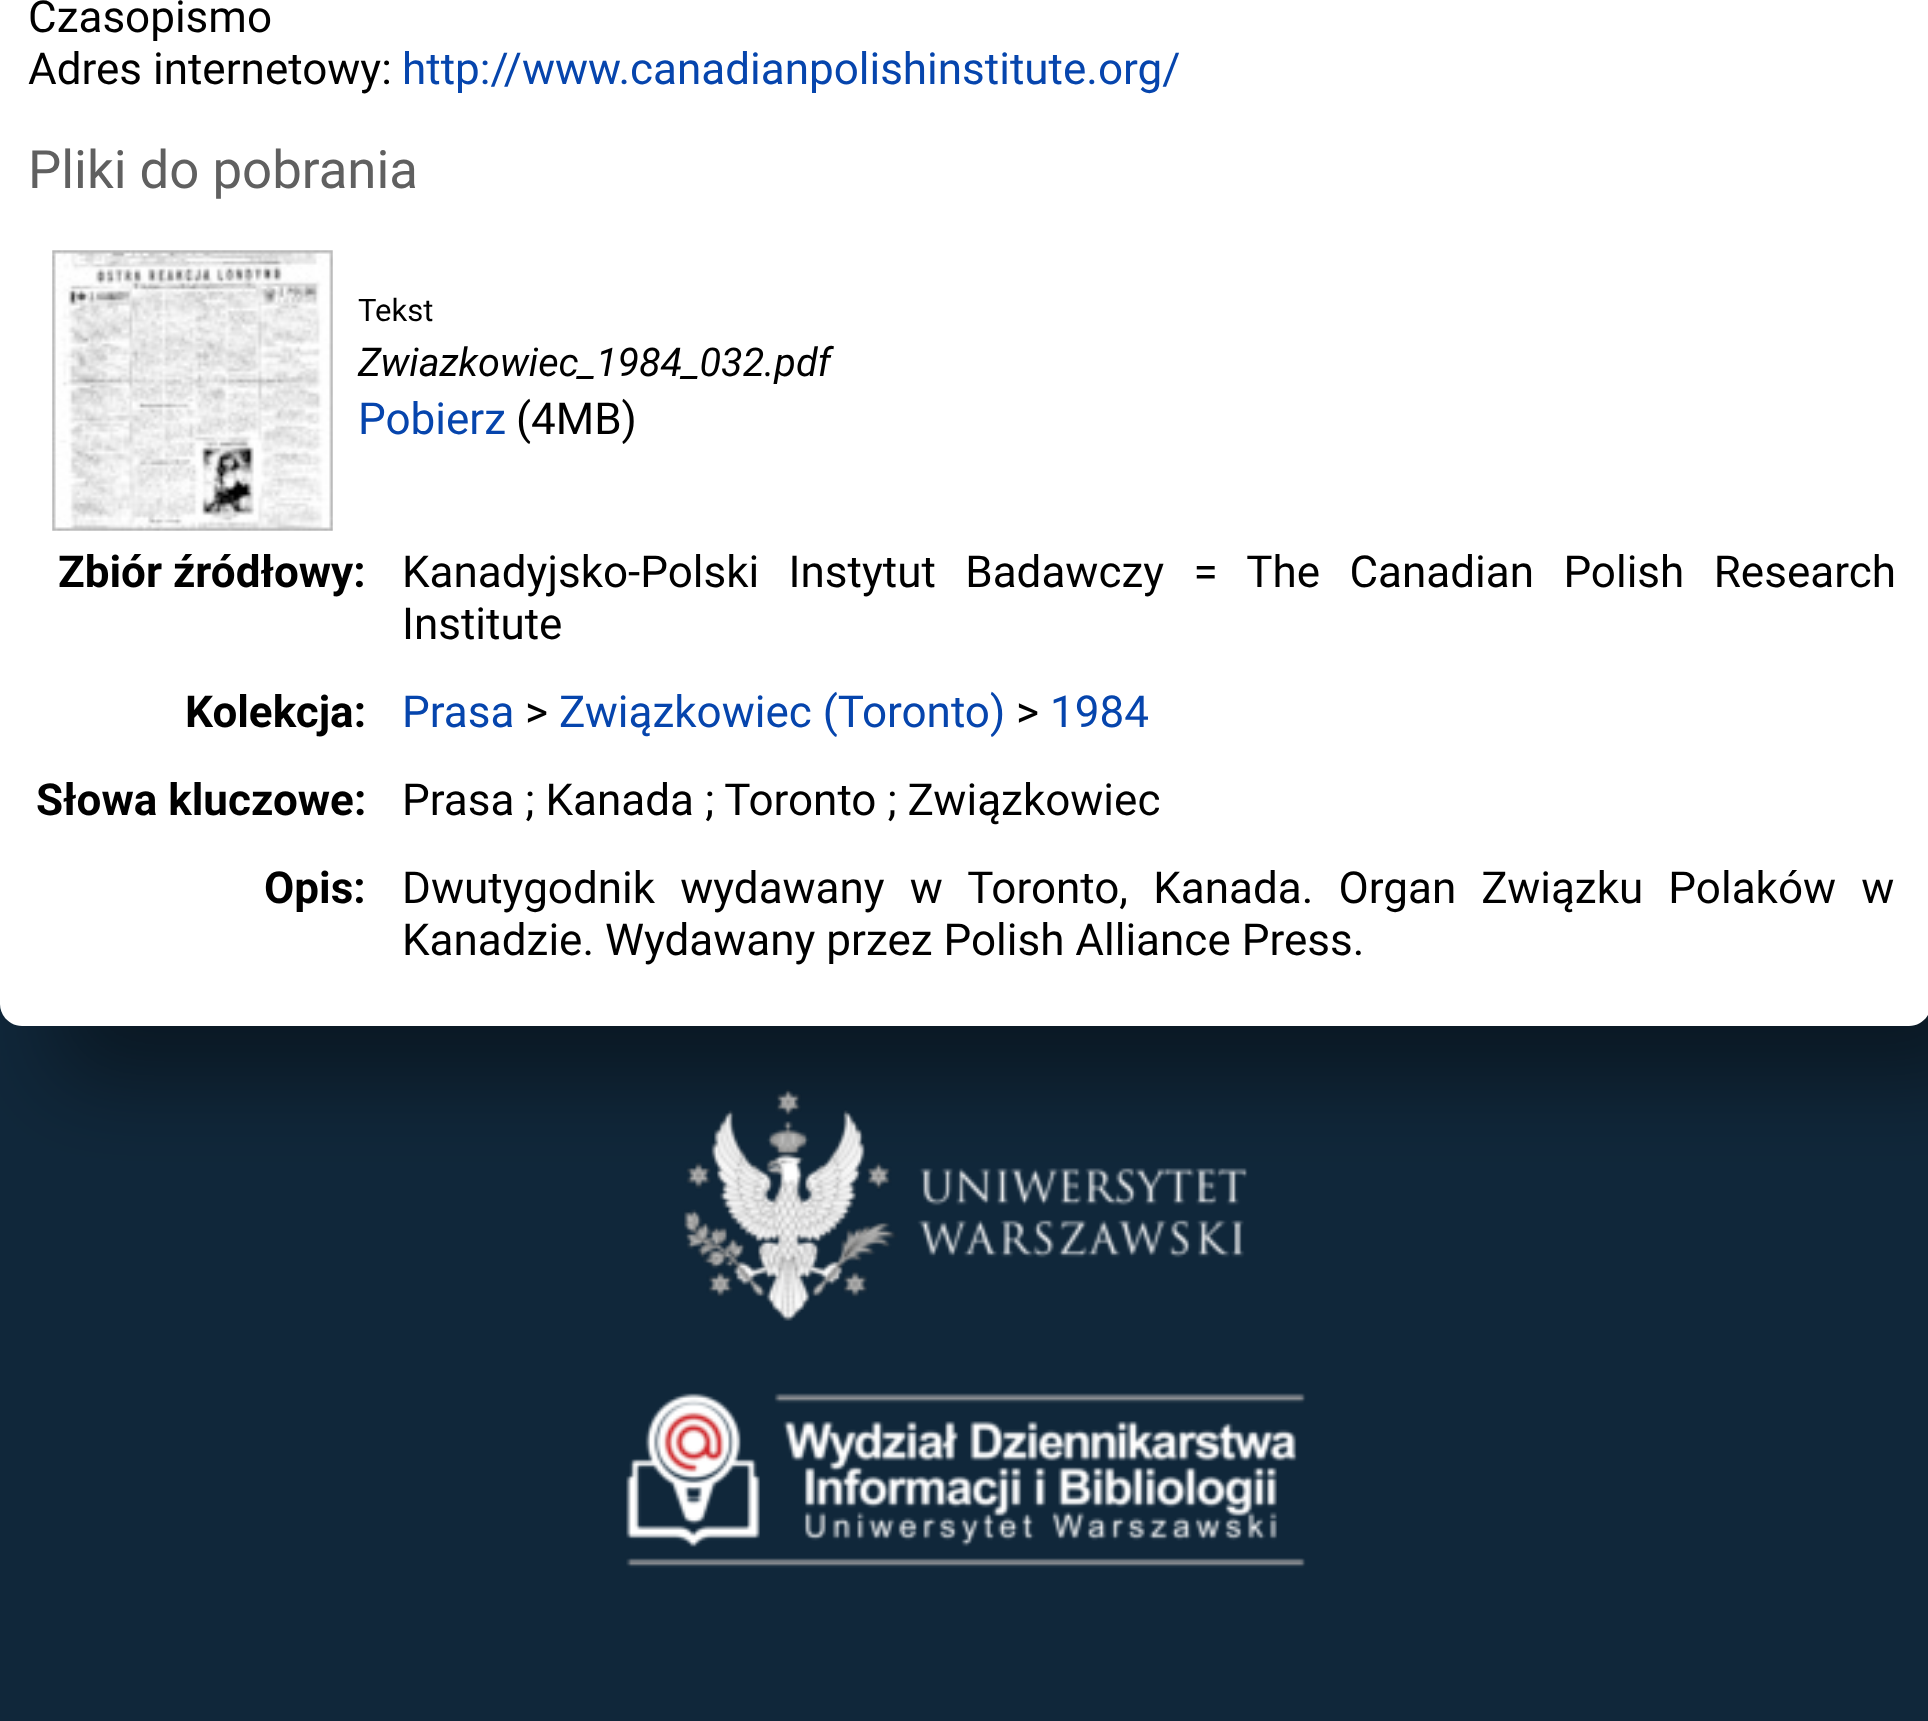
<?xml version="1.0" encoding="UTF-8"?>
<svg xmlns="http://www.w3.org/2000/svg" width="1928" height="1721">
    <defs>
        <filter id="blur1" x="-50%" y="-200%" width="200%" height="500%"><feGaussianBlur stdDeviation="44"/></filter>
    </defs>
    <rect width="100%" height="100%" fill="#10273A"/>
    <rect x="55" y="-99" width="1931" height="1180" rx="22" fill="#000000" fill-opacity="0.4" filter="url(#blur1)"/>
    <path d="M 0 -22 H 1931 V 1004 C 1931 1016 1921 1026 1909 1026 H 22 C 10 1026 0 1016 0 1004 Z" fill="#FFFFFF"/>
    <text font-family="Roboto" font-size="44" fill="#000000">
        <tspan x="28" y="32">Czasopismo</tspan>
        <tspan x="28" y="84">Adres internetowy:</tspan>
    </text>
    <text x="402" y="84" font-family="Roboto" font-size="44" fill="#0645AD">http://www.canadianpolishinstitute.org/</text>
    <text x="28" y="188" font-family="Roboto" font-size="52.75" fill="#606060">Pliki do pobrania</text>
    <image x="52" y="250" width="281" height="281" href="img_01.png"/>
    <text x="358" y="321" font-family="Roboto" font-size="31" fill="#000000">Tekst</text>
    <text x="358" y="376" font-family="Roboto" font-size="39.6" font-style="italic" fill="#000000">Zwiazkowiec_1984_032.pdf</text>
    <text x="358" y="434" font-family="Roboto" font-size="44" fill="#0645AD">Pobierz</text>
    <text x="516" y="434" font-family="Roboto" font-size="44" fill="#000000">(4MB)</text>
    <text x="58" y="587" font-family="Roboto" font-size="44" font-weight="700" fill="#000000">Zbiór źródłowy:</text>
    <text font-family="Roboto" font-size="44" fill="#000000">
        <tspan x="402" y="587" word-spacing="18.5">Kanadyjsko-Polski Instytut Badawczy = The Canadian Polish Research</tspan>
        <tspan x="402" y="639">Institute</tspan>
    </text>
    <text x="185" y="727" font-family="Roboto" font-size="44" font-weight="700" fill="#000000">Kolekcja:</text>
    <text x="402" y="727" font-family="Roboto" font-size="44" fill="#0645AD">Prasa</text>
    <text x="525" y="727" font-family="Roboto" font-size="44" fill="#000000">&gt;</text>
    <text x="559" y="727" font-family="Roboto" font-size="44" fill="#0645AD">Związkowiec (Toronto)</text>
    <text x="1016" y="727" font-family="Roboto" font-size="44" fill="#000000">&gt;</text>
    <text x="1050" y="727" font-family="Roboto" font-size="44" fill="#0645AD">1984</text>
    <text x="36" y="815" font-family="Roboto" font-size="44" font-weight="700" fill="#000000">Słowa kluczowe:</text>
    <text x="402" y="815" font-family="Roboto" font-size="44" fill="#000000">Prasa ; Kanada ; Toronto ; Związkowiec</text>
    <text x="264" y="903" font-family="Roboto" font-size="44" font-weight="700" fill="#000000">Opis:</text>
    <text font-family="Roboto" font-size="44" fill="#000000">
        <tspan x="402" y="903" word-spacing="14.25">Dwutygodnik wydawany w Toronto, Kanada. Organ Związku Polaków w</tspan>
        <tspan x="402" y="955">Kanadzie. Wydawany przez Polish Alliance Press.</tspan>
    </text>
    <image x="684" y="1089" width="564" height="232" href="img_02.png"/>
    <image x="626" y="1393" width="680" height="175" href="img_03.png"/>
</svg>
